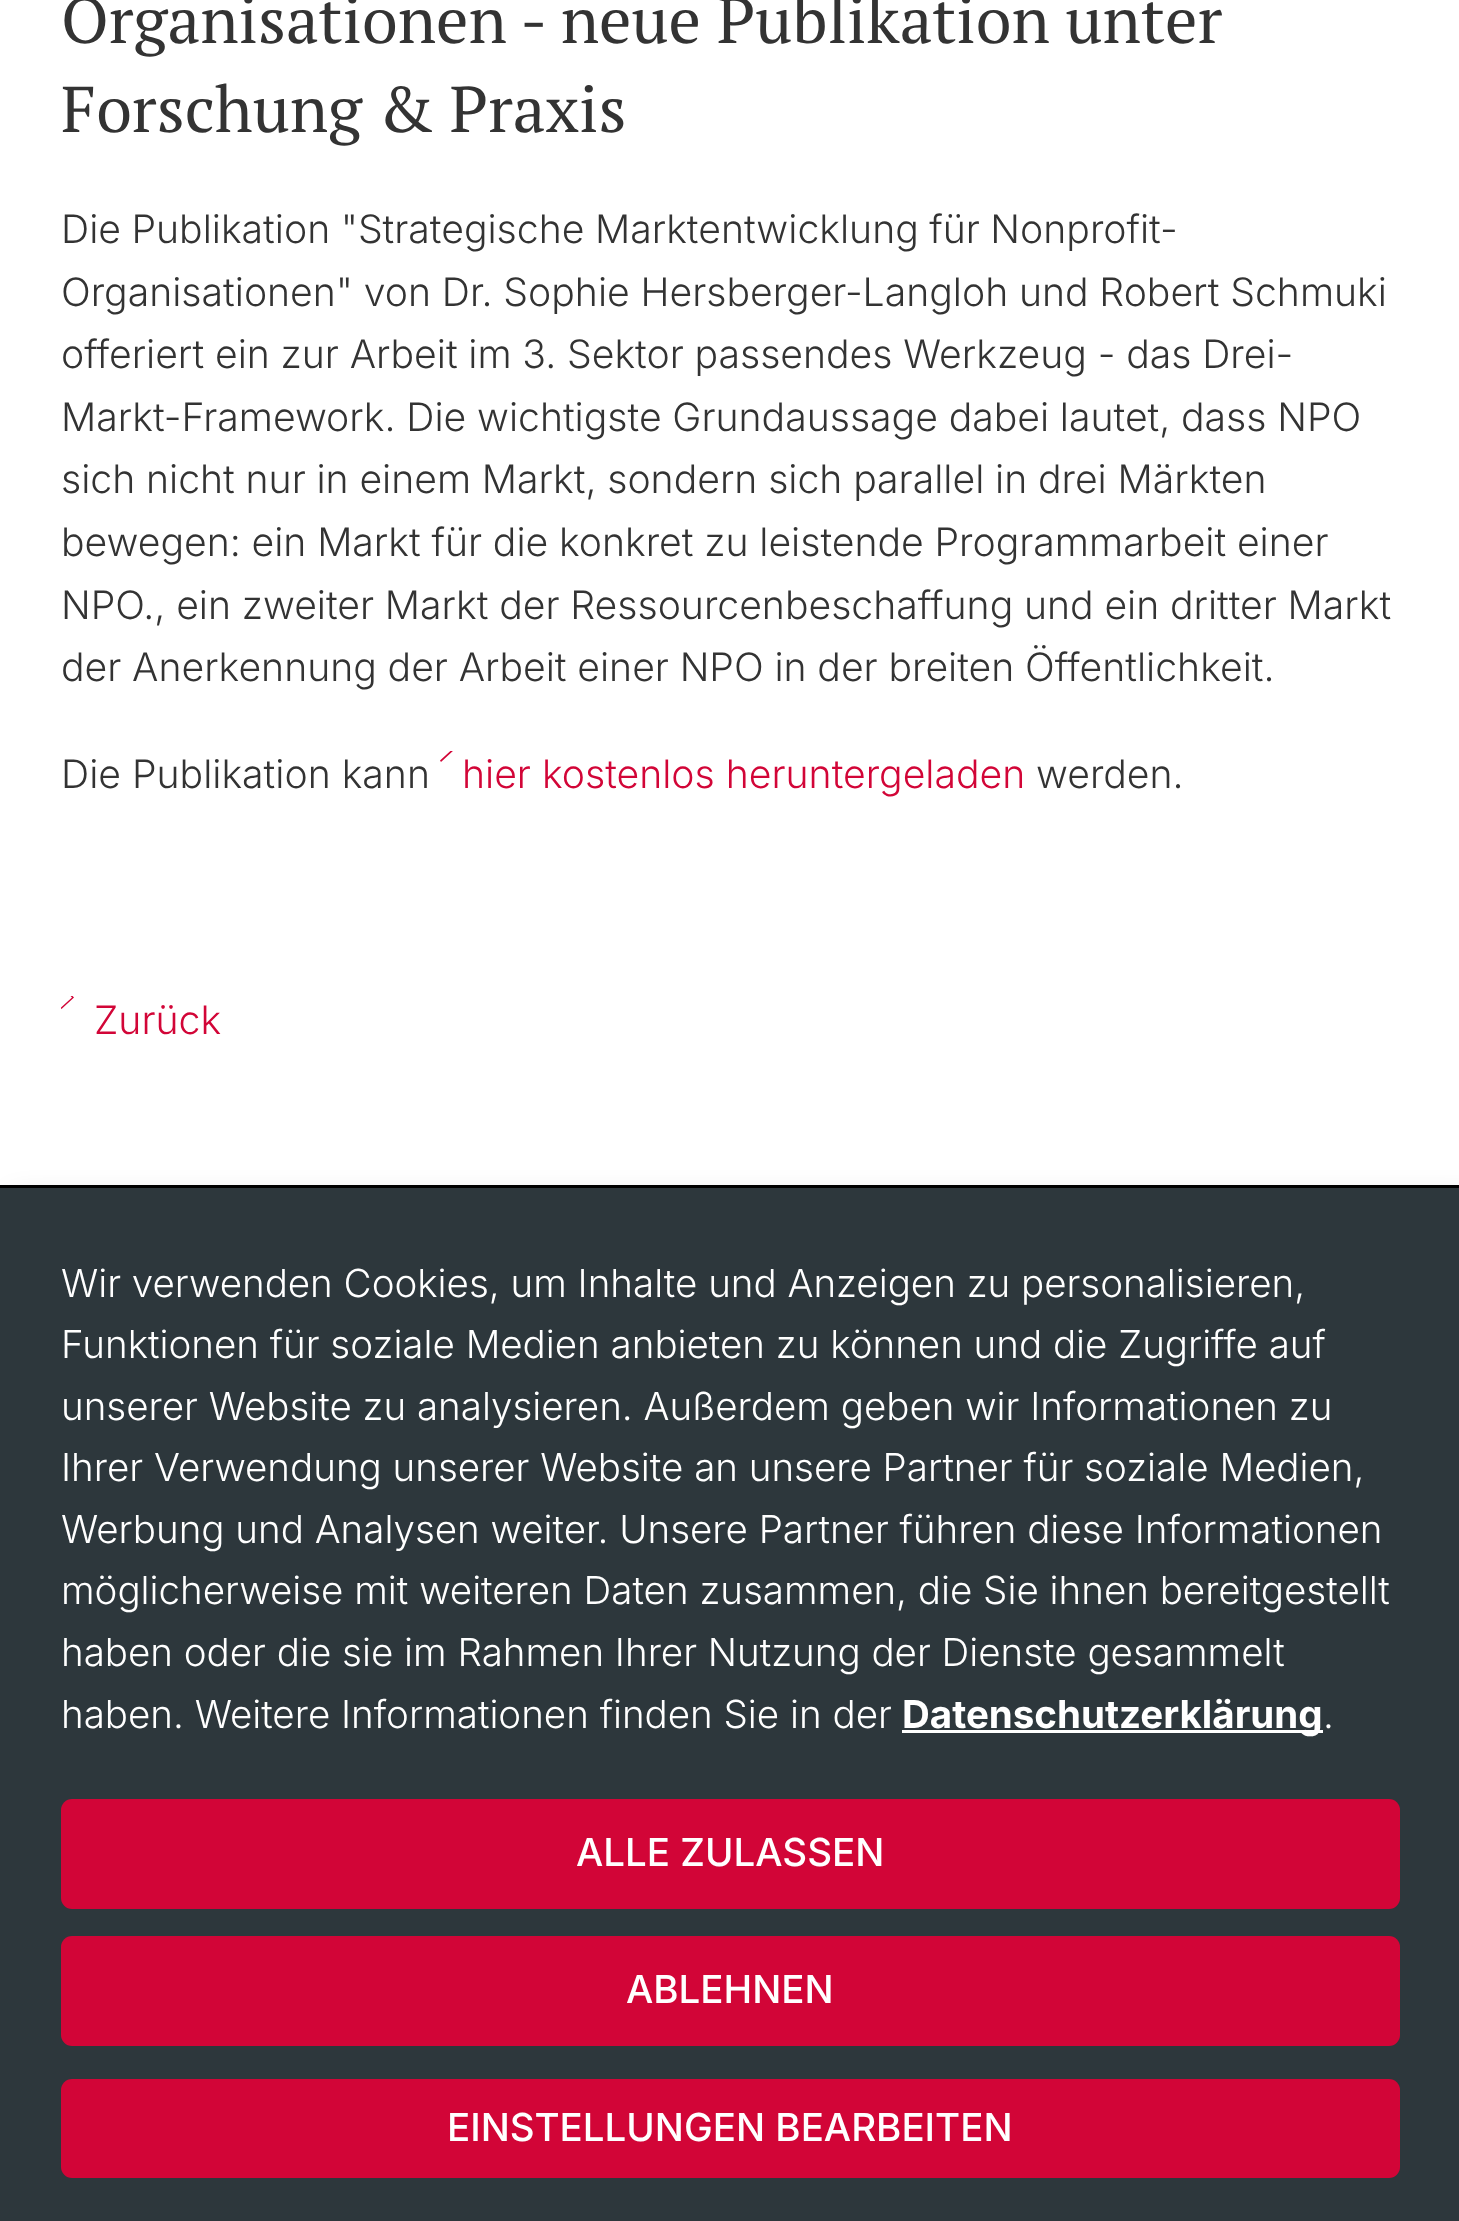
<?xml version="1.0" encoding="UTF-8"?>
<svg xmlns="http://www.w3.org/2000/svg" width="1459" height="2221">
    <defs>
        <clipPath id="clip1"><rect x="440" y="751" width="14" height="11"/></clipPath>
        <clipPath id="clip2"><rect x="61" y="996" width="13" height="13"/></clipPath>
        <filter id="blur1" x="-50%" y="-200%" width="200%" height="500%"><feGaussianBlur stdDeviation="14"/></filter>
    </defs>
    <rect width="100%" height="100%" fill="#FFFFFF"/>
    <text font-family="PT Serif" font-size="64.6" fill="#333333">
        <tspan x="61" y="43">Organisationen - neue Publikation unter</tspan>
        <tspan x="61" y="132">Forschung &amp; Praxis</tspan>
    </text>
    <text font-family="Inter" font-size="39.15" font-weight="300" fill="#333333">
        <tspan x="61" y="243" word-spacing="-0.5">Die Publikation "Strategische Marktentwicklung für Nonprofit-</tspan>
        <tspan x="61" y="306" word-spacing="-0.25">Organisationen" von Dr. Sophie Hersberger-Langloh und Robert Schmuki</tspan>
        <tspan x="61" y="368" word-spacing="-0.25">offeriert ein zur Arbeit im 3. Sektor passendes Werkzeug - das Drei-</tspan>
        <tspan x="61" y="431" word-spacing="-0.25">Markt-Framework. Die wichtigste Grundaussage dabei lautet, dass NPO</tspan>
        <tspan x="61" y="493" word-spacing="-0.25">sich nicht nur in einem Markt, sondern sich parallel in drei Märkten</tspan>
        <tspan x="61" y="556" word-spacing="-0.25">bewegen: ein Markt für die konkret zu leistende Programmarbeit einer</tspan>
        <tspan x="61" y="619" word-spacing="-0.25">NPO., ein zweiter Markt der Ressourcenbeschaffung und ein dritter Markt</tspan>
        <tspan x="61" y="681" word-spacing="-0.25">der Anerkennung der Arbeit einer NPO in der breiten Öffentlichkeit.</tspan>
    </text>
    <text x="61" y="788" font-family="Inter" font-size="39.15" font-weight="300" fill="#333333">Die Publikation kann</text>
    <text x="462" y="788" font-family="Inter" font-size="39.15" font-weight="300" fill="#D20537">hier kostenlos heruntergeladen</text>
    <g clip-path="url(#clip1)">
        <path d="M 441 762 L 440 760.5 L 451.5 750 L 440 738 L 441 737 L 454 750 Z" fill="#D20537"/>
    </g>
    <text x="1036" y="788" font-family="Inter" font-size="39.15" font-weight="300" fill="#333333">werden.</text>
    <text x="94" y="1034" font-family="Inter" font-size="39.15" font-weight="300" fill="#D20537">Zurück</text>
    <g clip-path="url(#clip2)">
        <path d="M 61.5 1009 L 60.5 1008 L 72 997.5 L 60.5 985.5 L 61.5 984.5 L 74 997.5 Z" fill="#D20537"/>
    </g>
    <rect x="14" y="1199" width="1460" height="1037" fill="#000000" fill-opacity="0.19" filter="url(#blur1)"/>
    <rect x="0" y="1188" width="1459" height="1033" fill="#2D373C"/>
    <rect x="0" y="1185" width="1459" height="3" fill="#000000"/>
    <text font-family="Inter" font-size="38.5" font-weight="300" fill="#FFFFFF">
        <tspan x="61" y="1297">Wir verwenden Cookies, um Inhalte und Anzeigen zu personalisieren,</tspan>
        <tspan x="61" y="1358">Funktionen für soziale Medien anbieten zu können und die Zugriffe auf</tspan>
        <tspan x="61" y="1420">unserer Website zu analysieren. Außerdem geben wir Informationen zu</tspan>
        <tspan x="61" y="1481">Ihrer Verwendung unserer Website an unsere Partner für soziale Medien,</tspan>
        <tspan x="61" y="1543">Werbung und Analysen weiter. Unsere Partner führen diese Informationen</tspan>
        <tspan x="61" y="1604">möglicherweise mit weiteren Daten zusammen, die Sie ihnen bereitgestellt</tspan>
        <tspan x="61" y="1666">haben oder die sie im Rahmen Ihrer Nutzung der Dienste gesammelt</tspan>
        <tspan x="61" y="1728">haben. Weitere Informationen finden Sie in der</tspan>
    </text>
    <rect x="902" y="1730" width="421" height="3" fill="#FFFFFF"/>
    <text x="902" y="1728" font-family="Inter" font-size="38.5" font-weight="700" fill="#FFFFFF">Datenschutzerklärung</text>
    <text x="1323" y="1728" font-family="Inter" font-size="38.5" font-weight="300" fill="#FFFFFF">.</text>
    <rect x="61" y="1799" width="1339" height="110" rx="11" fill="#D20537"/>
    <text x="576" y="1866" font-family="Inter" font-size="38.5" font-weight="500" fill="#FFFFFF">ALLE ZULASSEN</text>
    <rect x="61" y="1936" width="1339" height="110" rx="11" fill="#D20537"/>
    <text x="626" y="2003" font-family="Inter" font-size="38.5" font-weight="500" fill="#FFFFFF">ABLEHNEN</text>
    <rect x="61" y="2079" width="1339" height="99" rx="11" fill="#D20537"/>
    <text x="447" y="2141" font-family="Inter" font-size="38.5" font-weight="500" fill="#FFFFFF">EINSTELLUNGEN BEARBEITEN</text>
</svg>
